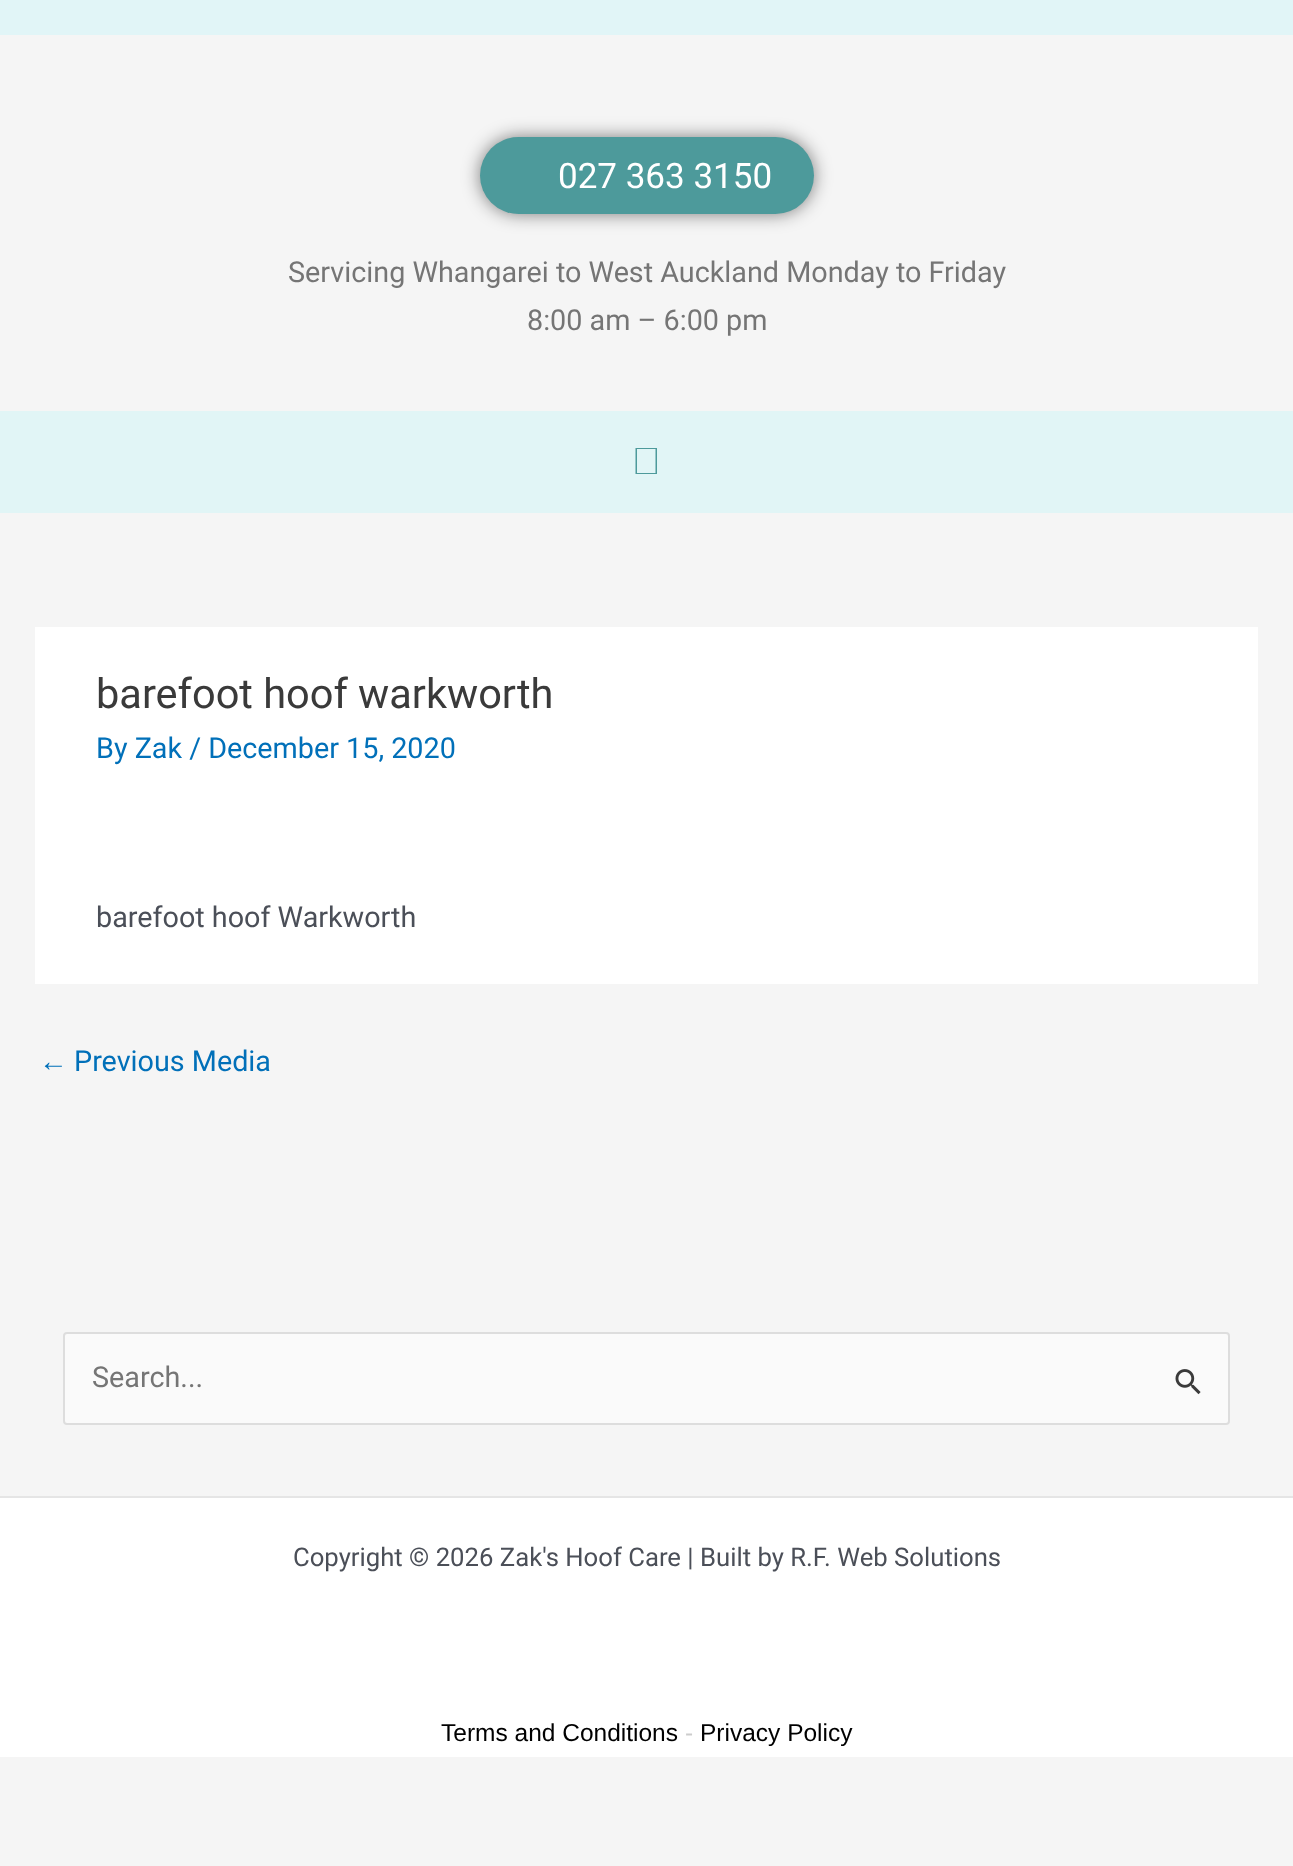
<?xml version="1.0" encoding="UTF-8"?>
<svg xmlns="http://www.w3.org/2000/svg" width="1293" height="1866">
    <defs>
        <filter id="blur1" x="-50%" y="-200%" width="200%" height="500%"><feGaussianBlur stdDeviation="9"/></filter>
    </defs>
    <rect width="100%" height="100%" fill="#F5F5F5"/>
    <rect x="0" y="0" width="1293" height="35" fill="#E1F5F7"/>
    <rect x="480" y="137" width="334" height="77" rx="38.5" fill="#000000" fill-opacity="0.5" filter="url(#blur1)"/>
    <rect x="480" y="137" width="334" height="77" rx="38.5" fill="#4D9A9B"/>
    <text x="558" y="188" font-family="Roboto" font-size="35" fill="#FFFFFF">027 363 3150</text>
    <text x="288" y="282" font-family="Roboto" font-size="28.75" fill="#757575">Servicing Whangarei to West Auckland Monday to Friday</text>
    <text x="527" y="330" font-family="Roboto" font-size="28.75" fill="#757575">8:00 am – 6:00 pm</text>
    <rect x="0" y="411" width="1293" height="102" fill="#E1F5F6"/>
    <path d="M 635.5 448 H 657 V 474 H 635.5 Z M 637 449 V 473 H 655.5 V 449 Z" fill="#4D9A9B"/>
    <rect x="35" y="627" width="1223" height="357" fill="#FFFFFF"/>
    <text x="96" y="708" font-family="Roboto" font-size="41.5" fill="#3A3A3A">barefoot hoof warkworth</text>
    <text x="96" y="758" font-family="Roboto" font-size="28.75" fill="#0170B9">By Zak / December 15, 2020</text>
    <text x="96" y="927" font-family="Roboto" font-size="28.75" fill="#4B4F58">barefoot hoof Warkworth</text>
    <text x="39" y="1071" font-family="Liberation Sans" font-size="28.75" fill="#0170B9">←</text>
    <text x="74" y="1071" font-family="Roboto" font-size="28.75" fill="#0170B9">Previous Media</text>
    <rect x="64" y="1333" width="1165" height="91" rx="3" fill="#FAFAFA" stroke="#DDDDDD" stroke-width="2"/>
    <text x="92" y="1387" font-family="Roboto" font-size="28.75" fill="#757575">Search...</text>
    <image x="1175" y="1369" width="26" height="26" href="img_01.png"/>
    <rect x="0" y="1498" width="1293" height="259" fill="#FFFFFF"/>
    <rect x="0" y="1496" width="1293" height="2" fill="#E5E5E5"/>
    <text x="293" y="1566" font-family="Roboto" font-size="25.7" fill="#4B4F58">Copyright © 2026 Zak's Hoof Care | Built by R.F. Web Solutions</text>
    <text x="441" y="1741" font-family="Liberation Sans" font-size="24.5" fill="#000000">Terms and Conditions</text>
    <text x="685" y="1741" font-family="Liberation Sans" font-size="24.5" fill="#CCCCCC">-</text>
    <text x="700" y="1741" font-family="Liberation Sans" font-size="24.5" fill="#000000">Privacy Policy</text>
</svg>
